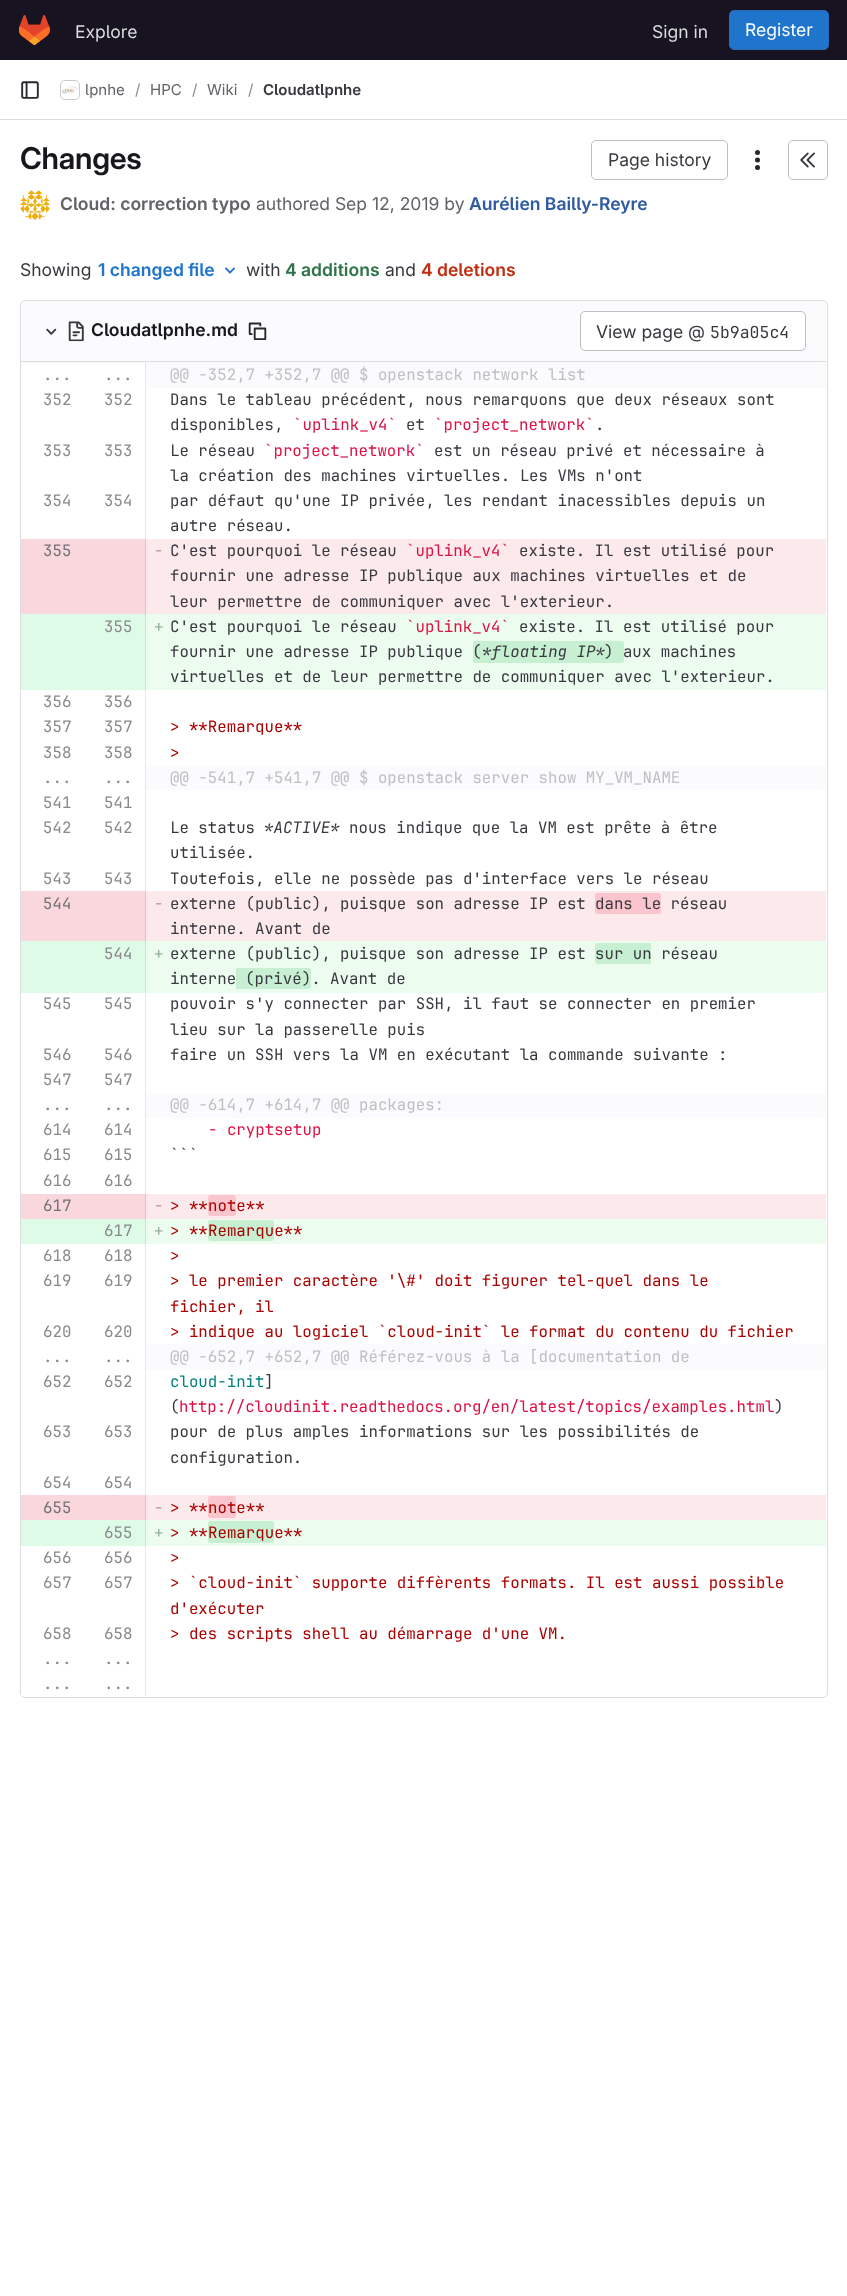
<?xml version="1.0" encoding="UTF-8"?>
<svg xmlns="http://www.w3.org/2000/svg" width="847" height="2296">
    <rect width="100%" height="100%" fill="#FFFFFF"/>
    <rect x="0" y="0" width="847" height="60" fill="#171321"/>
    <image x="19" y="15" width="31" height="30" href="img_01.png"/>
    <text x="75" y="38" font-family="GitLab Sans" font-size="17.5" fill="#DCDCDE">Explore</text>
    <text x="652" y="38" font-family="GitLab Sans" font-size="17.5" fill="#DCDCDE">Sign in</text>
    <rect x="729.5" y="10.5" width="99" height="39" rx="4.5" fill="#1F75CB" stroke="#2F68B4"/>
    <text x="745" y="36" font-family="GitLab Sans" font-size="17.5" fill="#FFFFFF">Register</text>
    <rect x="0" y="119" width="847" height="1" fill="#DCDCDE"/>
    <image x="21" y="81" width="18" height="18" href="img_02.png"/>
    <rect x="60.5" y="80.5" width="19" height="19" rx="4.5" fill="none" stroke="#DCDCDE"/>
    <image x="62" y="86" width="16" height="8" href="img_03.png"/>
    <rect x="60.5" y="80.5" width="19" height="19" rx="4.5" fill="none" stroke="#050506" stroke-opacity="0.08"/>
    <text x="85" y="95" font-family="GitLab Sans" font-size="15" fill="#626168">lpnhe</text>
    <text x="135" y="95" font-family="GitLab Sans" font-size="15" fill="#89888D">/</text>
    <text x="150" y="95" font-family="GitLab Sans" font-size="15" fill="#626168">HPC</text>
    <text x="192" y="95" font-family="GitLab Sans" font-size="15" fill="#89888D">/</text>
    <text x="207" y="95" font-family="GitLab Sans" font-size="15" fill="#626168">Wiki</text>
    <text x="248" y="95" font-family="GitLab Sans" font-size="15" fill="#89888D">/</text>
    <text x="263" y="95" font-family="'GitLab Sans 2'" font-size="15" font-weight="600" fill="#3A383F">Cloudatlpnhe</text>
    <text x="20" y="169" font-family="GitLab Sans" font-size="30" font-weight="600" letter-spacing="-0.25" fill="#18171D">Changes</text>
    <rect x="591.5" y="140.5" width="136" height="39" rx="4.5" fill="none" stroke="#BFBFC3"/>
    <text x="608" y="166" font-family="GitLab Sans" font-size="17.5" fill="#3A383F">Page history</text>
    <image x="755" y="150" width="5" height="20" href="img_04.png"/>
    <rect x="788.5" y="140.5" width="39" height="39" rx="4.5" fill="none" stroke="#BFBFC3"/>
    <image x="800" y="152" width="15" height="16" href="img_05.png"/>
    <circle cx="35" cy="205" r="14.5" fill="none" stroke="#E8E7E9"/>
    <image x="20" y="190" width="30" height="30" href="img_06.png"/>
    <text x="60" y="210" font-family="'GitLab Sans 2'" font-size="17.5" font-weight="600" fill="#626168">Cloud: correction typo</text>
    <text x="256" y="210" font-family="GitLab Sans" font-size="17.5" fill="#626168">authored Sep 12, 2019 by</text>
    <text x="469" y="210" font-family="'GitLab Sans 2'" font-size="17.5" font-weight="600" fill="#2F5CA0">Aurélien Bailly-Reyre</text>
    <text x="20" y="276" font-family="GitLab Sans" font-size="17.5" fill="#3A383F">Showing</text>
    <text x="98" y="276" font-family="'GitLab Sans 2'" font-size="17.5" font-weight="600" fill="#1F75CB">1 changed file</text>
    <image x="225" y="267" width="10" height="7" href="img_07.png"/>
    <text x="246" y="276" font-family="GitLab Sans" font-size="17.5" fill="#3A383F">with</text>
    <text x="285" y="276" font-family="'GitLab Sans 2'" font-size="17.5" font-weight="600" fill="#2F7549">4 additions</text>
    <text x="385" y="276" font-family="GitLab Sans" font-size="17.5" fill="#3A383F">and</text>
    <text x="421" y="276" font-family="'GitLab Sans 2'" font-size="17.5" font-weight="600" fill="#C02F12">4 deletions</text>
    <rect x="20.5" y="300.5" width="807" height="1397" rx="4.5" fill="none" stroke="#DCDCDE"/>
    <path d="M 25 301 H 822 C 824 301 826 303 826 305 V 363 H 21 V 305 C 21 303 23 301 25 301 Z" fill="#FBFAFD"/>
    <rect x="21" y="361" width="805" height="1" fill="#DCDCDE"/>
    <image x="46" y="328" width="11" height="7" href="img_08.png"/>
    <image x="68" y="321" width="16" height="21" href="img_09.png"/>
    <text x="91" y="336" font-family="'GitLab Sans 2'" font-size="17.5" font-weight="600" fill="#18171D">Cloudatlpnhe.md</text>
    <image x="248" y="322" width="19" height="18" href="img_10.png"/>
    <rect x="580.5" y="311.5" width="225" height="39" rx="4.5" fill="#FFFFFF" stroke="#BFBFC3"/>
    <text x="596" y="338" font-family="GitLab Sans" font-size="17.5" fill="#3A383F">View page @</text>
    <text x="710" y="338" font-family="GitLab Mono" font-size="16.5" fill="#3A383F">5b9a05c4</text>
    <text x="43" y="380" font-family="GitLab Mono" font-size="15.75" fill="#89888D">...</text>
    <rect x="145" y="363" width="1" height="176" fill="#E6E6E6"/>
    <text x="104" y="380" font-family="GitLab Mono" font-size="15.75" fill="#89888D">...</text>
    <rect x="146" y="363" width="680" height="25" fill="#FBFAFD"/>
    <text x="170" y="380" font-family="GitLab Mono" font-size="15.75" fill="#C0BFC2">@@ -352,7 +352,7 @@ $ openstack network list</text>
    <text x="43" y="405" font-family="GitLab Mono" font-size="15.75" fill="#89888D">352</text>
    <text x="104" y="405" font-family="GitLab Mono" font-size="15.75" fill="#89888D">352</text>
    <text font-family="GitLab Mono" font-size="15.75" fill="#3A383F">
        <tspan x="170" y="405">Dans le tableau précédent, nous remarquons que deux réseaux sont</tspan>
        <tspan x="170" y="430">disponibles,</tspan>
    </text>
    <text x="293" y="430" font-family="GitLab Mono" font-size="15.75" fill="#DD1144">`uplink_v4`</text>
    <text x="406" y="430" font-family="GitLab Mono" font-size="15.75" fill="#3A383F">et</text>
    <text x="434" y="430" font-family="GitLab Mono" font-size="15.75" fill="#DD1144">`project_network`</text>
    <text x="595" y="430" font-family="GitLab Mono" font-size="15.75" fill="#3A383F">.</text>
    <text x="43" y="456" font-family="GitLab Mono" font-size="15.75" fill="#89888D">353</text>
    <text x="104" y="456" font-family="GitLab Mono" font-size="15.75" fill="#89888D">353</text>
    <text x="170" y="456" font-family="GitLab Mono" font-size="15.75" fill="#3A383F">Le réseau</text>
    <text x="264" y="456" font-family="GitLab Mono" font-size="15.75" fill="#DD1144">`project_network`</text>
    <text x="434" y="456" font-family="GitLab Mono" font-size="15.75" fill="#3A383F">est un réseau privé et nécessaire à</text>
    <text x="170" y="481" font-family="GitLab Mono" font-size="15.75" fill="#3A383F">la création des machines virtuelles. Les VMs n'ont</text>
    <text x="43" y="506" font-family="GitLab Mono" font-size="15.75" fill="#89888D">354</text>
    <text x="104" y="506" font-family="GitLab Mono" font-size="15.75" fill="#89888D">354</text>
    <text font-family="GitLab Mono" font-size="15.75" fill="#3A383F">
        <tspan x="170" y="506">par défaut qu'une IP privée, les rendant inacessibles depuis un</tspan>
        <tspan x="170" y="531">autre réseau.</tspan>
    </text>
    <rect x="21" y="539" width="124" height="75" fill="#F9D7DC"/>
    <text x="43" y="556" font-family="GitLab Mono" font-size="15.75" fill="#737276">355</text>
    <rect x="145" y="539" width="1" height="75" fill="#E0C2C6"/>
    <rect x="146" y="539" width="680" height="75" fill="#FBE9EB"/>
    <text x="154" y="556" font-family="GitLab Mono" font-size="15.75" fill="#AE979A">-</text>
    <text x="170" y="556" font-family="GitLab Mono" font-size="15.75" fill="#3A383F">C'est pourquoi le réseau</text>
    <text x="406" y="556" font-family="GitLab Mono" font-size="15.75" fill="#DD1144">`uplink_v4`</text>
    <text x="519" y="556" font-family="GitLab Mono" font-size="15.75" fill="#3A383F">existe. Il est utilisé pour</text>
    <text font-family="GitLab Mono" font-size="15.75" fill="#3A383F">
        <tspan x="170" y="581">fournir une adresse IP publique aux machines virtuelles et de</tspan>
        <tspan x="170" y="607">leur permettre de communiquer avec l'exterieur.</tspan>
    </text>
    <rect x="21" y="614" width="124" height="76" fill="#DDFBE6"/>
    <rect x="146" y="614" width="680" height="76" fill="#ECFDF0"/>
    <text x="154" y="632" font-family="GitLab Mono" font-size="15.75" fill="#9BB0A1">+</text>
    <text x="170" y="632" font-family="GitLab Mono" font-size="15.75" fill="#3A383F">C'est pourquoi le réseau</text>
    <text x="406" y="632" font-family="GitLab Mono" font-size="15.75" fill="#DD1144">`uplink_v4`</text>
    <text x="519" y="632" font-family="GitLab Mono" font-size="15.75" fill="#3A383F">existe. Il est utilisé pour</text>
    <text x="170" y="657" font-family="GitLab Mono" font-size="15.75" fill="#3A383F">fournir une adresse IP publique</text>
    <path d="M 475.5 641 H 481 V 663 H 475.5 C 474 663 473 662 473 660.5 V 643.5 C 473 642 474 641 475.5 641 Z" fill="#C7F0D2"/>
    <text x="472" y="657" font-family="GitLab Mono" font-size="15.75" fill="#3A383F">(</text>
    <rect x="481" y="641" width="124" height="22" fill="#C7F0D2"/>
    <text x="482" y="657" font-family="JetBrains Mono" font-size="15.75" font-style="italic" fill="#3A383F">*floating IP*</text>
    <path d="M 605 641 H 621.5 C 623 641 624 642 624 643.5 V 660.5 C 624 662 623 663 621.5 663 H 605 Z" fill="#C7F0D2"/>
    <text x="604" y="657" font-family="GitLab Mono" font-size="15.75" fill="#3A383F">) aux machines</text>
    <text x="170" y="682" font-family="GitLab Mono" font-size="15.75" fill="#3A383F">virtuelles et de leur permettre de communiquer avec l'exterieur.</text>
    <rect x="145" y="614" width="1" height="76" fill="#C7E2CF"/>
    <text x="104" y="632" font-family="GitLab Mono" font-size="15.75" fill="#89888D">355</text>
    <text x="43" y="707" font-family="GitLab Mono" font-size="15.75" fill="#89888D">356</text>
    <rect x="145" y="690" width="1" height="201" fill="#E6E6E6"/>
    <text x="104" y="707" font-family="GitLab Mono" font-size="15.75" fill="#89888D">356</text>
    <text x="43" y="732" font-family="GitLab Mono" font-size="15.75" fill="#89888D">357</text>
    <text x="104" y="732" font-family="GitLab Mono" font-size="15.75" fill="#89888D">357</text>
    <text x="170" y="732" font-family="GitLab Mono" font-size="15.75" fill="#AA0000">&gt; **Remarque**</text>
    <text x="43" y="758" font-family="GitLab Mono" font-size="15.75" fill="#89888D">358</text>
    <text x="104" y="758" font-family="GitLab Mono" font-size="15.75" fill="#89888D">358</text>
    <text x="170" y="758" font-family="GitLab Mono" font-size="15.75" fill="#AA0000">&gt;</text>
    <text x="43" y="783" font-family="GitLab Mono" font-size="15.75" fill="#89888D">...</text>
    <text x="104" y="783" font-family="GitLab Mono" font-size="15.75" fill="#89888D">...</text>
    <rect x="146" y="765" width="680" height="25" fill="#FBFAFD"/>
    <text x="170" y="783" font-family="GitLab Mono" font-size="15.75" fill="#C0BFC2">@@ -541,7 +541,7 @@ $ openstack server show MY_VM_NAME</text>
    <text x="43" y="808" font-family="GitLab Mono" font-size="15.75" fill="#89888D">541</text>
    <text x="104" y="808" font-family="GitLab Mono" font-size="15.75" fill="#89888D">541</text>
    <text x="43" y="833" font-family="GitLab Mono" font-size="15.75" fill="#89888D">542</text>
    <text x="104" y="833" font-family="GitLab Mono" font-size="15.75" fill="#89888D">542</text>
    <text x="170" y="833" font-family="GitLab Mono" font-size="15.75" fill="#3A383F">Le status</text>
    <text x="264" y="833" font-family="JetBrains Mono" font-size="15.75" font-style="italic" fill="#3A383F">*ACTIVE*</text>
    <text x="349" y="833" font-family="GitLab Mono" font-size="15.75" fill="#3A383F">nous indique que la VM est prête à être</text>
    <text x="170" y="858" font-family="GitLab Mono" font-size="15.75" fill="#3A383F">utilisée.</text>
    <text x="43" y="884" font-family="GitLab Mono" font-size="15.75" fill="#89888D">543</text>
    <text x="104" y="884" font-family="GitLab Mono" font-size="15.75" fill="#89888D">543</text>
    <text x="170" y="884" font-family="GitLab Mono" font-size="15.75" fill="#3A383F">Toutefois, elle ne possède pas d'interface vers le réseau</text>
    <rect x="21" y="891" width="124" height="50" fill="#F9D7DC"/>
    <text x="43" y="909" font-family="GitLab Mono" font-size="15.75" fill="#737276">544</text>
    <rect x="145" y="891" width="1" height="50" fill="#E0C2C6"/>
    <rect x="146" y="891" width="680" height="50" fill="#FBE9EB"/>
    <text x="154" y="909" font-family="GitLab Mono" font-size="15.75" fill="#AE979A">-</text>
    <text x="170" y="909" font-family="GitLab Mono" font-size="15.75" fill="#3A383F">externe (public), puisque son adresse IP est</text>
    <rect x="595" y="893" width="66" height="21" rx="2.5" fill="#FAC5CD"/>
    <text x="595" y="909" font-family="GitLab Mono" font-size="15.75" fill="#3A383F">dans le réseau</text>
    <text x="170" y="934" font-family="GitLab Mono" font-size="15.75" fill="#3A383F">interne. Avant de</text>
    <rect x="21" y="941" width="124" height="52" fill="#DDFBE6"/>
    <rect x="146" y="941" width="680" height="52" fill="#ECFDF0"/>
    <text x="154" y="959" font-family="GitLab Mono" font-size="15.75" fill="#9BB0A1">+</text>
    <text x="170" y="959" font-family="GitLab Mono" font-size="15.75" fill="#3A383F">externe (public), puisque son adresse IP est</text>
    <path d="M 597.5 943 H 651 V 964 H 597.5 C 596 964 595 963 595 961.5 V 945.5 C 595 944 596 943 597.5 943 Z" fill="#C7F0D2"/>
    <text x="595" y="959" font-family="GitLab Mono" font-size="15.75" fill="#3A383F">sur un réseau</text>
    <text x="170" y="984" font-family="GitLab Mono" font-size="15.75" fill="#3A383F">interne</text>
    <path d="M 236 968 H 308.5 C 310 968 311 969 311 970.5 V 986.5 C 311 988 310 989 308.5 989 H 236 Z" fill="#C7F0D2"/>
    <text x="245" y="984" font-family="GitLab Mono" font-size="15.75" fill="#3A383F">(privé). Avant de</text>
    <rect x="145" y="941" width="1" height="52" fill="#C7E2CF"/>
    <text x="104" y="959" font-family="GitLab Mono" font-size="15.75" fill="#89888D">544</text>
    <text x="43" y="1009" font-family="GitLab Mono" font-size="15.75" fill="#89888D">545</text>
    <rect x="145" y="993" width="1" height="201" fill="#E6E6E6"/>
    <text x="104" y="1009" font-family="GitLab Mono" font-size="15.75" fill="#89888D">545</text>
    <text font-family="GitLab Mono" font-size="15.75" fill="#3A383F">
        <tspan x="170" y="1009">pouvoir s'y connecter par SSH, il faut se connecter en premier</tspan>
        <tspan x="170" y="1035">lieu sur la passerelle puis</tspan>
    </text>
    <text x="43" y="1060" font-family="GitLab Mono" font-size="15.75" fill="#89888D">546</text>
    <text x="104" y="1060" font-family="GitLab Mono" font-size="15.75" fill="#89888D">546</text>
    <text x="170" y="1060" font-family="GitLab Mono" font-size="15.75" fill="#3A383F">faire un SSH vers la VM en exécutant la commande suivante :</text>
    <text x="43" y="1085" font-family="GitLab Mono" font-size="15.75" fill="#89888D">547</text>
    <text x="104" y="1085" font-family="GitLab Mono" font-size="15.75" fill="#89888D">547</text>
    <text x="43" y="1110" font-family="GitLab Mono" font-size="15.75" fill="#89888D">...</text>
    <text x="104" y="1110" font-family="GitLab Mono" font-size="15.75" fill="#89888D">...</text>
    <rect x="146" y="1093" width="680" height="25" fill="#FBFAFD"/>
    <text x="170" y="1110" font-family="GitLab Mono" font-size="15.75" fill="#C0BFC2">@@ -614,7 +614,7 @@ packages:</text>
    <text x="43" y="1135" font-family="GitLab Mono" font-size="15.75" fill="#89888D">614</text>
    <text x="104" y="1135" font-family="GitLab Mono" font-size="15.75" fill="#89888D">614</text>
    <text x="208" y="1135" font-family="GitLab Mono" font-size="15.75" fill="#DD1144">- cryptsetup</text>
    <text x="43" y="1160" font-family="GitLab Mono" font-size="15.75" fill="#89888D">615</text>
    <text x="104" y="1160" font-family="GitLab Mono" font-size="15.75" fill="#89888D">615</text>
    <text x="170" y="1160" font-family="GitLab Mono" font-size="15.75" fill="#3A383F">```</text>
    <text x="43" y="1186" font-family="GitLab Mono" font-size="15.75" fill="#89888D">616</text>
    <text x="104" y="1186" font-family="GitLab Mono" font-size="15.75" fill="#89888D">616</text>
    <rect x="21" y="1194" width="124" height="25" fill="#F9D7DC"/>
    <text x="43" y="1211" font-family="GitLab Mono" font-size="15.75" fill="#737276">617</text>
    <rect x="145" y="1194" width="1" height="25" fill="#E0C2C6"/>
    <rect x="146" y="1194" width="680" height="25" fill="#FBE9EB"/>
    <text x="154" y="1211" font-family="GitLab Mono" font-size="15.75" fill="#AE979A">-</text>
    <text x="170" y="1211" font-family="GitLab Mono" font-size="15.75" fill="#AA0000">&gt; **</text>
    <rect x="208" y="1195" width="28" height="21" rx="2.5" fill="#FAC5CD"/>
    <text x="208" y="1211" font-family="GitLab Mono" font-size="15.75" fill="#AA0000">note**</text>
    <rect x="21" y="1219" width="124" height="25" fill="#DDFBE6"/>
    <rect x="145" y="1219" width="1" height="25" fill="#C7E2CF"/>
    <text x="104" y="1236" font-family="GitLab Mono" font-size="15.75" fill="#89888D">617</text>
    <rect x="146" y="1219" width="680" height="25" fill="#ECFDF0"/>
    <text x="154" y="1236" font-family="GitLab Mono" font-size="15.75" fill="#9BB0A1">+</text>
    <text x="170" y="1236" font-family="GitLab Mono" font-size="15.75" fill="#AA0000">&gt; **</text>
    <rect x="208" y="1220" width="66" height="21" rx="2.5" fill="#C7F0D2"/>
    <text x="208" y="1236" font-family="GitLab Mono" font-size="15.75" fill="#AA0000">Remarque**</text>
    <text x="43" y="1261" font-family="GitLab Mono" font-size="15.75" fill="#89888D">618</text>
    <rect x="145" y="1244" width="1" height="251" fill="#E6E6E6"/>
    <text x="104" y="1261" font-family="GitLab Mono" font-size="15.75" fill="#89888D">618</text>
    <text x="170" y="1261" font-family="GitLab Mono" font-size="15.75" fill="#AA0000">&gt;</text>
    <text x="43" y="1286" font-family="GitLab Mono" font-size="15.75" fill="#89888D">619</text>
    <text x="104" y="1286" font-family="GitLab Mono" font-size="15.75" fill="#89888D">619</text>
    <text font-family="GitLab Mono" font-size="15.75" fill="#AA0000">
        <tspan x="170" y="1286">&gt; le premier caractère '\#' doit figurer tel-quel dans le</tspan>
        <tspan x="170" y="1312">fichier, il</tspan>
    </text>
    <text x="43" y="1337" font-family="GitLab Mono" font-size="15.75" fill="#89888D">620</text>
    <text x="104" y="1337" font-family="GitLab Mono" font-size="15.75" fill="#89888D">620</text>
    <text x="170" y="1337" font-family="GitLab Mono" font-size="15.75" fill="#AA0000">&gt; indique au logiciel `cloud-init` le format du contenu du fichier</text>
    <text x="43" y="1362" font-family="GitLab Mono" font-size="15.75" fill="#89888D">...</text>
    <text x="104" y="1362" font-family="GitLab Mono" font-size="15.75" fill="#89888D">...</text>
    <rect x="146" y="1344" width="680" height="26" fill="#FBFAFD"/>
    <text x="170" y="1362" font-family="GitLab Mono" font-size="15.75" fill="#C0BFC2">@@ -652,7 +652,7 @@ Référez-vous à la [documentation de</text>
    <text x="43" y="1387" font-family="GitLab Mono" font-size="15.75" fill="#89888D">652</text>
    <text x="104" y="1387" font-family="GitLab Mono" font-size="15.75" fill="#89888D">652</text>
    <text x="170" y="1387" font-family="GitLab Mono" font-size="15.75" fill="#008080">cloud-init</text>
    <text x="264" y="1387" font-family="GitLab Mono" font-size="15.75" fill="#3A383F">]</text>
    <text x="170" y="1412" font-family="GitLab Mono" font-size="15.75" fill="#3A383F">(</text>
    <text x="179" y="1412" font-family="GitLab Mono" font-size="15.75" fill="#DD1144">http://cloudinit.readthedocs.org/en/latest/topics/examples.html</text>
    <text x="774" y="1412" font-family="GitLab Mono" font-size="15.75" fill="#3A383F">)</text>
    <text x="43" y="1437" font-family="GitLab Mono" font-size="15.75" fill="#89888D">653</text>
    <text x="104" y="1437" font-family="GitLab Mono" font-size="15.75" fill="#89888D">653</text>
    <text font-family="GitLab Mono" font-size="15.75" fill="#3A383F">
        <tspan x="170" y="1437">pour de plus amples informations sur les possibilités de</tspan>
        <tspan x="170" y="1463">configuration.</tspan>
    </text>
    <text x="43" y="1488" font-family="GitLab Mono" font-size="15.75" fill="#89888D">654</text>
    <text x="104" y="1488" font-family="GitLab Mono" font-size="15.75" fill="#89888D">654</text>
    <rect x="21" y="1495" width="124" height="25" fill="#F9D7DC"/>
    <text x="43" y="1513" font-family="GitLab Mono" font-size="15.75" fill="#737276">655</text>
    <rect x="145" y="1495" width="1" height="25" fill="#E0C2C6"/>
    <rect x="146" y="1495" width="680" height="25" fill="#FBE9EB"/>
    <text x="154" y="1513" font-family="GitLab Mono" font-size="15.75" fill="#AE979A">-</text>
    <text x="170" y="1513" font-family="GitLab Mono" font-size="15.75" fill="#AA0000">&gt; **</text>
    <rect x="208" y="1496" width="28" height="22" rx="2.5" fill="#FAC5CD"/>
    <text x="208" y="1513" font-family="GitLab Mono" font-size="15.75" fill="#AA0000">note**</text>
    <rect x="21" y="1520" width="124" height="26" fill="#DDFBE6"/>
    <rect x="145" y="1520" width="1" height="26" fill="#C7E2CF"/>
    <text x="104" y="1538" font-family="GitLab Mono" font-size="15.75" fill="#89888D">655</text>
    <rect x="146" y="1520" width="680" height="26" fill="#ECFDF0"/>
    <text x="154" y="1538" font-family="GitLab Mono" font-size="15.75" fill="#9BB0A1">+</text>
    <text x="170" y="1538" font-family="GitLab Mono" font-size="15.75" fill="#AA0000">&gt; **</text>
    <rect x="208" y="1521" width="66" height="22" rx="2.5" fill="#C7F0D2"/>
    <text x="208" y="1538" font-family="GitLab Mono" font-size="15.75" fill="#AA0000">Remarque**</text>
    <text x="43" y="1563" font-family="GitLab Mono" font-size="15.75" fill="#89888D">656</text>
    <rect x="145" y="1546" width="1" height="150" fill="#E6E6E6"/>
    <text x="104" y="1563" font-family="GitLab Mono" font-size="15.75" fill="#89888D">656</text>
    <text x="170" y="1563" font-family="GitLab Mono" font-size="15.75" fill="#AA0000">&gt;</text>
    <text x="43" y="1588" font-family="GitLab Mono" font-size="15.75" fill="#89888D">657</text>
    <text x="104" y="1588" font-family="GitLab Mono" font-size="15.75" fill="#89888D">657</text>
    <text font-family="GitLab Mono" font-size="15.75" fill="#AA0000">
        <tspan x="170" y="1588">&gt; `cloud-init` supporte diffèrents formats. Il est aussi possible</tspan>
        <tspan x="170" y="1614">d'exécuter</tspan>
    </text>
    <text x="43" y="1639" font-family="GitLab Mono" font-size="15.75" fill="#89888D">658</text>
    <text x="104" y="1639" font-family="GitLab Mono" font-size="15.75" fill="#89888D">658</text>
    <text x="170" y="1639" font-family="GitLab Mono" font-size="15.75" fill="#AA0000">&gt; des scripts shell au démarrage d'une VM.</text>
    <text x="43" y="1664" font-family="GitLab Mono" font-size="15.75" fill="#89888D">...</text>
    <text x="104" y="1664" font-family="GitLab Mono" font-size="15.75" fill="#89888D">...</text>
    <rect x="21" y="1694" width="1" height="2" fill="#FFFFFF"/>
    <text x="43" y="1689" font-family="GitLab Mono" font-size="15.75" fill="#89888D">...</text>
    <text x="104" y="1689" font-family="GitLab Mono" font-size="15.75" fill="#89888D">...</text>
</svg>
